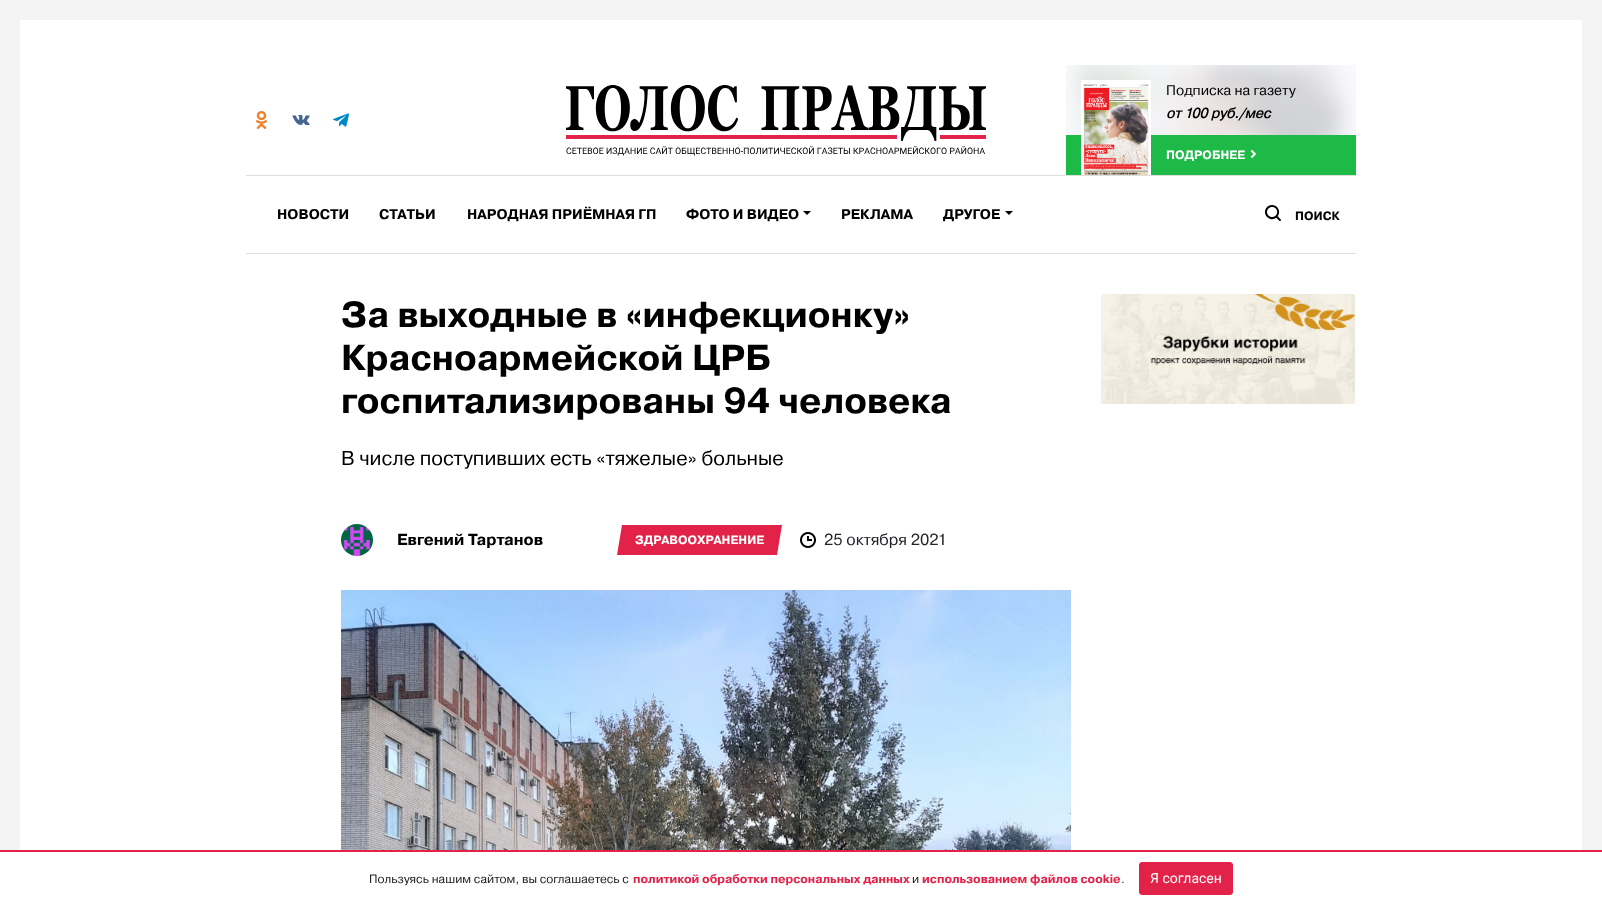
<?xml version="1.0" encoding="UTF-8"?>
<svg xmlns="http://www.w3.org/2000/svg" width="1602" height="905">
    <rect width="100%" height="100%" fill="#F3F3F3"/>
    <rect x="20" y="20" width="1562" height="830" fill="#FFFFFF"/>
    <image x="255" y="111" width="12" height="18" href="img_01.png"/>
    <image x="292" y="115" width="18" height="11" href="img_02.png"/>
    <image x="333" y="113" width="16" height="14" href="img_03.png"/>
    <image x="566" y="85" width="420" height="71" href="img_04.png"/>
    <image x="1066" y="65" width="290" height="70" href="img_05.png"/>
    <rect x="1066" y="65" width="290" height="70" fill="#F5F7FB" fill-opacity="0.8"/>
    <rect x="1066" y="135" width="290" height="40" fill="#1DBA48"/>
    <image x="1081" y="80" width="70" height="95" href="img_06.png"/>
    <text x="1166" y="95" font-family="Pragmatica" font-size="14" fill="#000000">Подписка на газету</text>
    <text x="1166" y="118" font-family="Pragmatica" font-size="14" font-weight="700" font-style="italic" fill="#000000">от 100 руб./мес</text>
    <text x="1166" y="159" font-family="Pragmatica" font-size="12" font-weight="700" fill="#FFFFFF">ПОДРОБНЕЕ</text>
    <image x="1250" y="149" width="7" height="10" href="img_07.png"/>
    <rect x="246" y="175" width="1110" height="1" fill="#DDDDDD"/>
    <rect x="246" y="253" width="1110" height="1" fill="#DDDDDD"/>
    <text x="277" y="219" font-family="Pragmatica" font-size="14" font-weight="700" fill="#000000">НОВОСТИ</text>
    <text x="379" y="219" font-family="Pragmatica" font-size="14" font-weight="700" fill="#000000">СТАТЬИ</text>
    <text x="467" y="219" font-family="Pragmatica" font-size="14" font-weight="700" fill="#000000">НАРОДНАЯ ПРИЁМНАЯ ГП</text>
    <text x="686" y="219" font-family="Pragmatica" font-size="14" font-weight="700" fill="#000000">ФОТО И ВИДЕО</text>
    <path d="M 803 211 H 811 L 807 215 Z" fill="#000000"/>
    <text x="841" y="219" font-family="Pragmatica" font-size="14" font-weight="700" fill="#000000">РЕКЛАМА</text>
    <text x="943" y="219" font-family="Pragmatica" font-size="14" font-weight="700" fill="#000000">ДРУГОЕ</text>
    <path d="M 1005 211 H 1013 L 1009 215 Z" fill="#000000"/>
    <image x="1265" y="205" width="16" height="16" href="img_08.png"/>
    <text x="1295" y="220" font-family="Pragmatica" font-size="12" font-weight="700" fill="#000000">ПОИСК</text>
    <text font-family="Pragmatica" font-size="36" font-weight="700" fill="#000000">
        <tspan x="341" y="327">За выходные в «инфекционку»</tspan>
        <tspan x="341" y="370">Красноармейской ЦРБ</tspan>
        <tspan x="341" y="413">госпитализированы 94 человека</tspan>
    </text>
    <text x="341" y="465" font-family="Pragmatica" font-size="20" fill="#000000">В числе поступивших есть «тяжелые» больные</text>
    <image x="341" y="524" width="32" height="32" href="img_09.png"/>
    <text x="397" y="545" font-family="Pragmatica" font-size="16" font-weight="700" fill="#000000">Евгений Тартанов</text>
    <path d="M 622 525 H 782 L 777 555 H 617 Z" fill="#E32249"/>
    <text x="635" y="544" font-family="Pragmatica" font-size="12" font-weight="700" fill="#FFFFFF">ЗДРАВООХРАНЕНИЕ</text>
    <image x="800" y="532" width="16" height="16" href="img_10.png"/>
    <text x="824" y="545" font-family="Pragmatica" font-size="16" fill="#212529">25 октября 2021</text>
    <image x="341" y="590" width="730" height="260" href="img_11.png"/>
    <image x="1101" y="294" width="254" height="110" href="img_12.png"/>
    <rect x="0" y="852" width="1602" height="53" fill="#FFFFFF"/>
    <rect x="0" y="850" width="1602" height="2" fill="#E32249"/>
    <text x="369" y="883" font-family="Pragmatica" font-size="12" fill="#1E1E1E">Пользуясь нашим сайтом, вы соглашаетесь с</text>
    <text x="633" y="883" font-family="Pragmatica" font-size="12" font-weight="700" fill="#E32249">политикой обработки персональных данных</text>
    <text x="912" y="883" font-family="Pragmatica" font-size="12" fill="#1E1E1E">и</text>
    <text x="922" y="883" font-family="Pragmatica" font-size="12" font-weight="700" fill="#E32249">использованием файлов cookie</text>
    <text x="1121" y="883" font-family="Pragmatica" font-size="12" fill="#1E1E1E">.</text>
    <rect x="1139.5" y="862.5" width="93" height="32" rx="2.5" fill="#E32249" stroke="#E32249"/>
    <text x="1150" y="883" font-family="Roboto" font-size="14" fill="#FFFFFF">Я согласен</text>
</svg>
